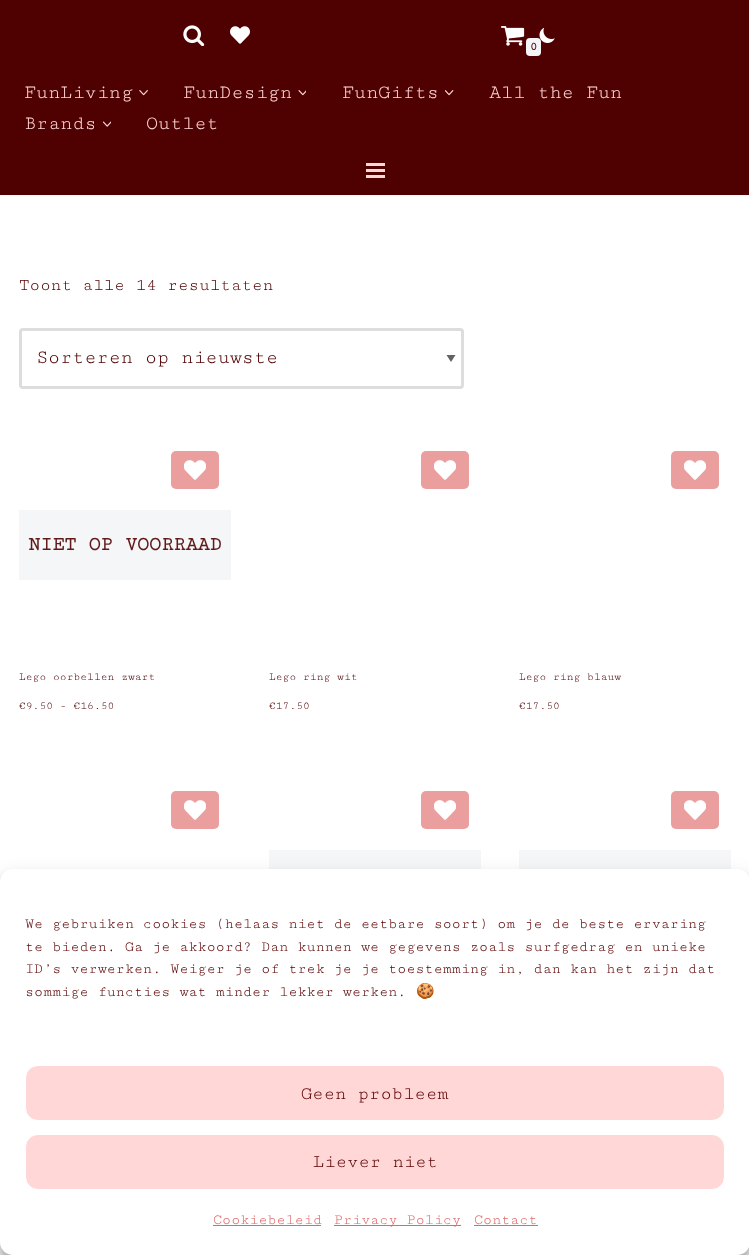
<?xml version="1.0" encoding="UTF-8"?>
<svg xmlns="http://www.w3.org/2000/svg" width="749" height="1255">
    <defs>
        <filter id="blur1" x="-50%" y="-200%" width="200%" height="500%"><feGaussianBlur stdDeviation="2"/></filter>
        <filter id="blur2" x="-50%" y="-200%" width="200%" height="500%"><feGaussianBlur stdDeviation="4"/></filter>
        <filter id="blur3" x="-50%" y="-200%" width="200%" height="500%"><feGaussianBlur stdDeviation="12.5"/></filter>
    </defs>
    <rect width="100%" height="100%" fill="#FFFFFF"/>
    <rect x="0" y="-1" width="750" height="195" fill="#000000" fill-opacity="0.1" filter="url(#blur1)"/>
    <rect x="0" y="0" width="749" height="195" fill="#4F0000"/>
    <image x="183" y="25" width="22" height="21" href="img_01.png"/>
    <image x="230" y="26" width="20" height="18" href="img_02.png"/>
    <rect x="526" y="38" width="15" height="18" rx="4" fill="#F4F5F7"/>
    <image x="539" y="27" width="16" height="16" href="img_03.png"/>
    <image x="501" y="26" width="24" height="20" href="img_04.png"/>
    <text x="530" y="50" font-family="Cutive Mono" font-size="12" font-weight="700" fill="#4F0000">0</text>
    <text x="24" y="98" font-family="Cutive Mono" font-size="20" fill="#FFD7D7">FunLiving</text>
    <image x="139" y="90" width="9" height="6" href="img_05.png"/>
    <text x="183" y="98" font-family="Cutive Mono" font-size="20" fill="#FFD7D7">FunDesign</text>
    <image x="298" y="90" width="8" height="6" href="img_06.png"/>
    <text x="342" y="98" font-family="Cutive Mono" font-size="20" fill="#FFD7D7">FunGifts</text>
    <image x="445" y="90" width="9" height="6" href="img_07.png"/>
    <text x="489" y="98" font-family="Cutive Mono" font-size="20" fill="#FFD7D7">All the Fun</text>
    <text x="24" y="129" font-family="Cutive Mono" font-size="20" fill="#FFD7D7">Brands</text>
    <image x="103" y="121" width="8" height="6" href="img_08.png"/>
    <text x="146" y="129" font-family="Cutive Mono" font-size="20" fill="#FFD7D7">Outlet</text>
    <rect x="366" y="163" width="19" height="3" fill="#FFD7D7"/>
    <rect x="366" y="169" width="19" height="3" fill="#FFD7D7"/>
    <rect x="366" y="175" width="19" height="3" fill="#FFD7D7"/>
    <text x="19" y="290" font-family="Cutive Mono" font-size="17.5" fill="#4F0000">Toont alle 14 resultaten</text>
    <path d="M 455.5 355 L 451 362 L 446.5 355 Z" fill="#626262"/>
    <rect x="20.5" y="329.5" width="442" height="58" rx="2.5" fill="none" stroke="#DDDDDD" stroke-width="3"/>
    <text x="36" y="363" font-family="Cutive Mono" font-size="20" fill="#4F0000">Sorteren op nieuwste</text>
    <rect x="171" y="451" width="48" height="38" rx="5" fill="#EA9E9E"/>
    <image x="184" y="460" width="22" height="20" href="img_09.png"/>
    <rect x="19" y="510" width="212" height="70" fill="#F5F6F8"/>
    <text x="28" y="550" font-family="Cutive Mono" font-size="20" font-weight="700" fill="#611A1A">NIET OP VOORRAAD</text>
    <text x="19" y="680" font-family="Cutive Mono" font-size="11.25" fill="#4F0000">Lego oorbellen zwart</text>
    <text x="19" y="709" font-family="Cutive Mono" font-size="11.25" fill="#4F0000">€9.50 - €16.50</text>
    <rect x="421" y="451" width="48" height="38" rx="5" fill="#EA9E9E"/>
    <image x="434" y="460" width="22" height="20" href="img_09.png"/>
    <text x="269" y="680" font-family="Cutive Mono" font-size="11.25" fill="#4F0000">Lego ring wit</text>
    <text x="269" y="709" font-family="Cutive Mono" font-size="11.25" fill="#4F0000">€17.50</text>
    <rect x="671" y="451" width="48" height="38" rx="5" fill="#EA9E9E"/>
    <image x="684" y="460" width="22" height="20" href="img_09.png"/>
    <text x="519" y="680" font-family="Cutive Mono" font-size="11.25" fill="#4F0000">Lego ring blauw</text>
    <text x="519" y="709" font-family="Cutive Mono" font-size="11.25" fill="#4F0000">€17.50</text>
    <rect x="171" y="791" width="48" height="38" rx="5" fill="#EA9E9E"/>
    <image x="184" y="800" width="22" height="20" href="img_09.png"/>
    <rect x="421" y="791" width="48" height="38" rx="5" fill="#EA9E9E"/>
    <image x="434" y="800" width="22" height="20" href="img_09.png"/>
    <rect x="269" y="850" width="212" height="19" fill="#F5F6F8"/>
    <rect x="671" y="791" width="48" height="38" rx="5" fill="#EA9E9E"/>
    <image x="684" y="800" width="22" height="20" href="img_09.png"/>
    <rect x="519" y="850" width="212" height="19" fill="#F5F6F8"/>
    <rect x="0" y="876" width="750" height="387" rx="13" fill="#000000" fill-opacity="0.23" filter="url(#blur2)"/>
    <rect x="0" y="881" width="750" height="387" rx="13" fill="#000000" fill-opacity="0.19" filter="url(#blur3)"/>
    <rect x="0" y="869" width="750" height="386" rx="13" fill="#FFFFFF"/>
    <text font-family="Cutive Mono" font-size="15" fill="#5B0000">
        <tspan x="25" y="928">We gebruiken cookies (helaas niet de eetbare soort) om je de beste ervaring</tspan>
        <tspan x="25" y="951">te bieden. Ga je akkoord? Dan kunnen we gegevens zoals surfgedrag en unieke</tspan>
        <tspan x="25" y="973">ID’s verwerken. Weiger je of trek je je toestemming in, dan kan het zijn dat</tspan>
        <tspan x="25" y="996">sommige functies wat minder lekker werken.</tspan>
    </text>
    <text x="416" y="996" font-family="Noto Color Emoji" font-size="15" fill="#5B0000">🍪</text>
    <rect x="25.5" y="1065.5" width="699" height="55" rx="12.5" fill="#FFD7D7" stroke="#FFFFFF"/>
    <text x="301" y="1099" font-family="Cutive Mono" font-size="18.75" fill="#5B0000">Geen probleem</text>
    <rect x="25.5" y="1134.5" width="699" height="55" rx="12.5" fill="#FFD7D7" stroke="#FFFFFF"/>
    <text x="313" y="1167" font-family="Cutive Mono" font-size="18.75" fill="#5B0000">Liever niet</text>
    <text x="213" y="1224" font-family="Cutive Mono" font-size="15" fill="#DF6969">Cookiebeleid</text>
    <rect x="213" y="1225" width="108" height="1" fill="#DF6969"/>
    <rect x="334" y="1225" width="127" height="1" fill="#DF6969"/>
    <text x="334" y="1224" font-family="Cutive Mono" font-size="15" fill="#DF6969">Privacy Policy</text>
    <text x="474" y="1224" font-family="Cutive Mono" font-size="15" fill="#DF6969">Contact</text>
    <rect x="474" y="1225" width="64" height="1" fill="#DF6969"/>
</svg>
